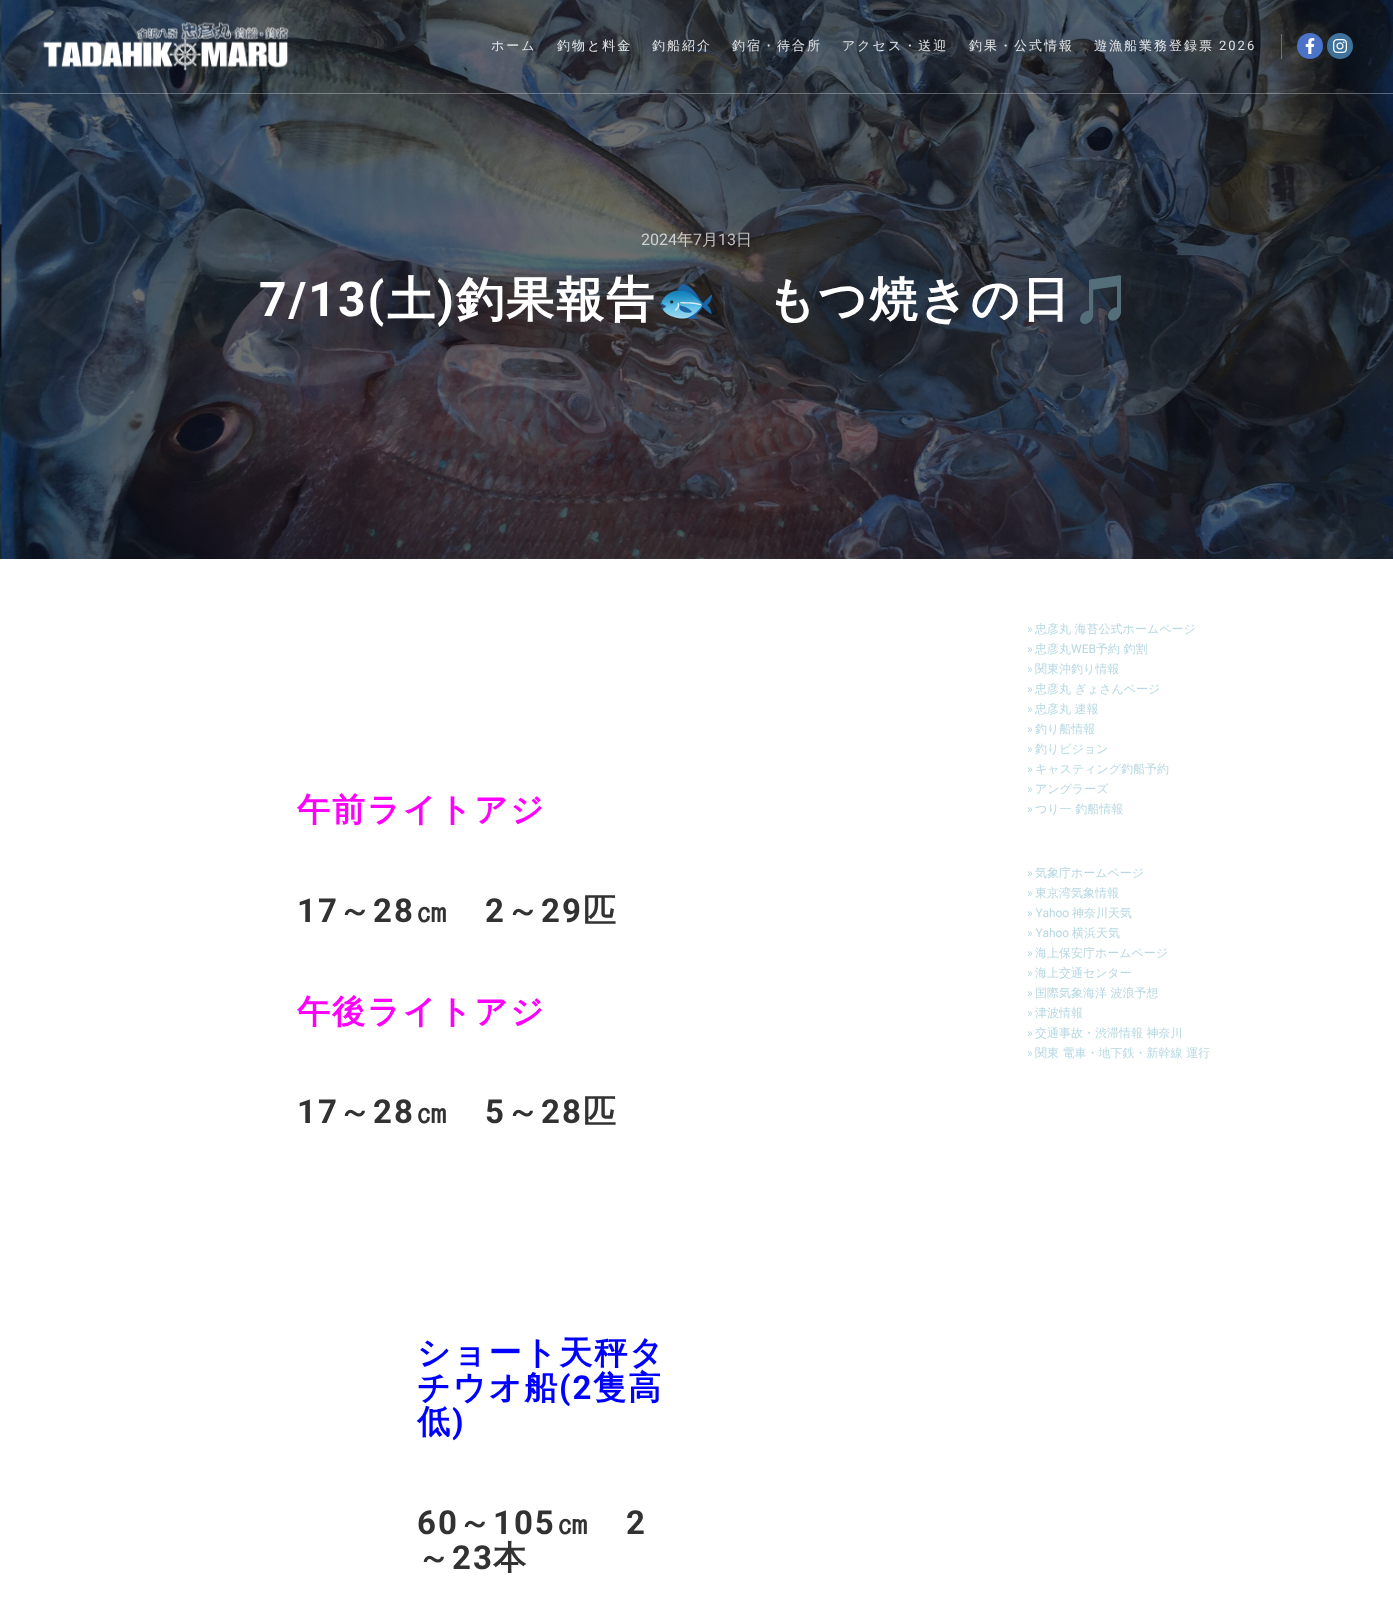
<?xml version="1.0" encoding="UTF-8"?>
<svg xmlns="http://www.w3.org/2000/svg" width="1393" height="1617">
    <rect width="100%" height="100%" fill="#FFFFFF"/>
    <image x="0" y="0" width="1393" height="559" href="img_04.png"/>
    <rect x="0" y="93" width="1393" height="1" fill="#FFFFFF" fill-opacity="0.3"/>
    <image x="43" y="21" width="246" height="50" href="img_01.png"/>
    <text x="491" y="50" font-family="WenQuanYi Zen Hei" font-size="13" font-weight="500" letter-spacing="2" fill="#E5E6E8">ホーム</text>
    <text x="557" y="50" font-family="WenQuanYi Zen Hei" font-size="13" font-weight="500" letter-spacing="2" fill="#E5E6E8">釣物と料金</text>
    <text x="652" y="50" font-family="WenQuanYi Zen Hei" font-size="13" font-weight="500" letter-spacing="2" fill="#E5E6E8">釣船紹介</text>
    <text x="732" y="50" font-family="WenQuanYi Zen Hei" font-size="13" font-weight="500" letter-spacing="2" fill="#E5E6E8">釣宿・待合所</text>
    <text x="842" y="50" font-family="WenQuanYi Zen Hei" font-size="13" font-weight="500" letter-spacing="2" fill="#DFE1E2">アクセス・送迎</text>
    <text x="969" y="50" font-family="WenQuanYi Zen Hei" font-size="13" font-weight="500" letter-spacing="2" fill="#E5E6E8">釣果・公式情報</text>
    <text x="1094" y="50" font-family="WenQuanYi Zen Hei" font-size="13" font-weight="500" letter-spacing="2" fill="#E5E6E8">遊漁船業務登録票</text>
    <text x="1219" y="50" font-family="Roboto" font-size="13" letter-spacing="2" fill="#DFE1E2">2026</text>
    <rect x="1281" y="34" width="1" height="25" fill="#FFFFFF" fill-opacity="0.3"/>
    <circle cx="1310" cy="46" r="13" fill="#4A73C9"/>
    <image x="1305" y="38" width="10" height="16" href="img_02.png"/>
    <circle cx="1340" cy="46" r="13" fill="#3F729B"/>
    <image x="1333" y="39" width="14" height="14" href="img_03.png"/>
    <text x="641" y="245" font-family="Roboto" font-size="16" fill="#CFD0D0">2024</text>
    <text x="677" y="245" font-family="WenQuanYi Zen Hei" font-size="16" font-weight="500" fill="#CBCAC7">年</text>
    <text x="693" y="245" font-family="Roboto" font-size="16" fill="#C2C0C0">7</text>
    <text x="702" y="245" font-family="WenQuanYi Zen Hei" font-size="16" font-weight="500" fill="#C2C0C0">月</text>
    <text x="718" y="245" font-family="Roboto" font-size="16" fill="#C2C0C0">13</text>
    <text x="736" y="245" font-family="WenQuanYi Zen Hei" font-size="16" font-weight="500" fill="#C2C0C0">日</text>
    <text x="259" y="316" font-family="Roboto" font-size="48" font-weight="700" letter-spacing="2" fill="#FFFFFF">7/13(</text>
    <text x="387" y="316" font-family="WenQuanYi Zen Hei" font-size="48" font-weight="700" letter-spacing="2" fill="#FFFFFF">土</text>
    <text x="437" y="316" font-family="Roboto" font-size="48" font-weight="700" letter-spacing="2" fill="#FFFFFF">)</text>
    <text x="456" y="316" font-family="WenQuanYi Zen Hei" font-size="48" font-weight="700" letter-spacing="2" fill="#FFFFFF">釣果報告</text>
    <text x="656" y="316" font-family="Noto Color Emoji" font-size="48" font-weight="700" letter-spacing="2" fill="#FFFFFF">🐟</text>
    <text x="767" y="316" font-family="WenQuanYi Zen Hei" font-size="48" font-weight="700" letter-spacing="2" fill="#FFFFFF">もつ焼きの日</text>
    <text x="1072" y="316" font-family="Noto Color Emoji" font-size="48" font-weight="700" letter-spacing="2" fill="#FFFFFF">🎵</text>
    <text x="297" y="821" font-family="WenQuanYi Zen Hei" font-size="33" font-weight="700" letter-spacing="2" fill="#FF00FF">午前ライトアジ</text>
    <text x="297" y="922" font-family="Roboto" font-size="33" font-weight="700" letter-spacing="2" fill="#323232">17</text>
    <text x="338" y="922" font-family="WenQuanYi Zen Hei" font-size="33" font-weight="700" letter-spacing="2" fill="#323232">～</text>
    <text x="373" y="922" font-family="Roboto" font-size="33" font-weight="700" letter-spacing="2" fill="#323232">28</text>
    <text x="415" y="922" font-family="WenQuanYi Zen Hei" font-size="33" font-weight="700" letter-spacing="2" fill="#323232">㎝</text>
    <text x="485" y="922" font-family="Roboto" font-size="33" font-weight="700" letter-spacing="2" fill="#323232">2</text>
    <text x="506" y="922" font-family="WenQuanYi Zen Hei" font-size="33" font-weight="700" letter-spacing="2" fill="#323232">～</text>
    <text x="541" y="922" font-family="Roboto" font-size="33" font-weight="700" letter-spacing="2" fill="#323232">29</text>
    <text x="583" y="922" font-family="WenQuanYi Zen Hei" font-size="33" font-weight="700" letter-spacing="2" fill="#323232">匹</text>
    <text x="297" y="1023" font-family="WenQuanYi Zen Hei" font-size="33" font-weight="700" letter-spacing="2" fill="#FF00FF">午後ライトアジ</text>
    <text x="297" y="1123" font-family="Roboto" font-size="33" font-weight="700" letter-spacing="2" fill="#323232">17</text>
    <text x="338" y="1123" font-family="WenQuanYi Zen Hei" font-size="33" font-weight="700" letter-spacing="2" fill="#323232">～</text>
    <text x="373" y="1123" font-family="Roboto" font-size="33" font-weight="700" letter-spacing="2" fill="#323232">28</text>
    <text x="415" y="1123" font-family="WenQuanYi Zen Hei" font-size="33" font-weight="700" letter-spacing="2" fill="#323232">㎝</text>
    <text x="485" y="1123" font-family="Roboto" font-size="33" font-weight="700" letter-spacing="2" fill="#323232">5</text>
    <text x="506" y="1123" font-family="WenQuanYi Zen Hei" font-size="33" font-weight="700" letter-spacing="2" fill="#323232">～</text>
    <text x="541" y="1123" font-family="Roboto" font-size="33" font-weight="700" letter-spacing="2" fill="#323232">28</text>
    <text x="583" y="1123" font-family="WenQuanYi Zen Hei" font-size="33" font-weight="700" letter-spacing="2" fill="#323232">匹</text>
    <text font-family="WenQuanYi Zen Hei" font-size="33" font-weight="700" letter-spacing="2" fill="#0000FF">
        <tspan x="417" y="1364">ショート天秤タ</tspan>
        <tspan x="417" y="1399">チウオ船</tspan>
    </text>
    <text x="559" y="1399" font-family="Roboto" font-size="33" font-weight="700" letter-spacing="2" fill="#0000FF">(2</text>
    <text x="593" y="1399" font-family="WenQuanYi Zen Hei" font-size="33" font-weight="700" letter-spacing="2" fill="#0000FF">隻高</text>
    <text x="417" y="1433" font-family="WenQuanYi Zen Hei" font-size="33" font-weight="700" letter-spacing="2" fill="#0000FF">低</text>
    <text x="452" y="1433" font-family="Roboto" font-size="33" font-weight="700" letter-spacing="2" fill="#0000FF">)</text>
    <text x="417" y="1534" font-family="Roboto" font-size="33" font-weight="700" letter-spacing="2" fill="#323232">60</text>
    <text x="458" y="1534" font-family="WenQuanYi Zen Hei" font-size="33" font-weight="700" letter-spacing="2" fill="#323232">～</text>
    <text x="493" y="1534" font-family="Roboto" font-size="33" font-weight="700" letter-spacing="2" fill="#323232">105</text>
    <text x="556" y="1534" font-family="WenQuanYi Zen Hei" font-size="33" font-weight="700" letter-spacing="2" fill="#323232">㎝</text>
    <text x="626" y="1534" font-family="Roboto" font-size="33" font-weight="700" letter-spacing="2" fill="#323232">2</text>
    <text x="417" y="1569" font-family="WenQuanYi Zen Hei" font-size="33" font-weight="700" letter-spacing="2" fill="#323232">～</text>
    <text x="452" y="1569" font-family="Roboto" font-size="33" font-weight="700" letter-spacing="2" fill="#323232">23</text>
    <text x="493" y="1569" font-family="WenQuanYi Zen Hei" font-size="33" font-weight="700" letter-spacing="2" fill="#323232">本</text>
    <text x="1027" y="633" font-family="Roboto" font-size="12" fill="#B7D8E2">»</text>
    <text x="1035" y="633" font-family="WenQuanYi Zen Hei" font-size="12" font-weight="500" fill="#B7D8E2">忠彦丸 海苔公式ホームページ</text>
    <text x="1027" y="653" font-family="Roboto" font-size="12" fill="#B7D8E2">»</text>
    <text x="1035" y="653" font-family="WenQuanYi Zen Hei" font-size="12" font-weight="500" fill="#B7D8E2">忠彦丸</text>
    <text x="1071" y="653" font-family="Roboto" font-size="12" fill="#B7D8E2">WEB</text>
    <text x="1096" y="653" font-family="WenQuanYi Zen Hei" font-size="12" font-weight="500" fill="#B7D8E2">予約 釣割</text>
    <text x="1027" y="673" font-family="Roboto" font-size="12" fill="#B7D8E2">»</text>
    <text x="1035" y="673" font-family="WenQuanYi Zen Hei" font-size="12" font-weight="500" fill="#B7D8E2">関東沖釣り情報</text>
    <text x="1027" y="693" font-family="Roboto" font-size="12" fill="#B7D8E2">»</text>
    <text x="1035" y="693" font-family="WenQuanYi Zen Hei" font-size="12" font-weight="500" fill="#B7D8E2">忠彦丸 ぎょさんページ</text>
    <text x="1027" y="713" font-family="Roboto" font-size="12" fill="#B7D8E2">»</text>
    <text x="1035" y="713" font-family="WenQuanYi Zen Hei" font-size="12" font-weight="500" fill="#B7D8E2">忠彦丸 速報</text>
    <text x="1027" y="733" font-family="Roboto" font-size="12" fill="#B7D8E2">»</text>
    <text x="1035" y="733" font-family="WenQuanYi Zen Hei" font-size="12" font-weight="500" fill="#B7D8E2">釣り船情報</text>
    <text x="1027" y="753" font-family="Roboto" font-size="12" fill="#B7D8E2">»</text>
    <text x="1035" y="753" font-family="WenQuanYi Zen Hei" font-size="12" font-weight="500" fill="#B7D8E2">釣りビジョン</text>
    <text x="1027" y="773" font-family="Roboto" font-size="12" fill="#B7D8E2">»</text>
    <text x="1035" y="773" font-family="WenQuanYi Zen Hei" font-size="12" font-weight="500" fill="#B7D8E2">キャスティング釣船予約</text>
    <text x="1027" y="793" font-family="Roboto" font-size="12" fill="#B7D8E2">»</text>
    <text x="1035" y="793" font-family="WenQuanYi Zen Hei" font-size="12" font-weight="500" fill="#B7D8E2">アングラーズ</text>
    <text x="1027" y="813" font-family="Roboto" font-size="12" fill="#B7D8E2">»</text>
    <text x="1035" y="813" font-family="WenQuanYi Zen Hei" font-size="12" font-weight="500" fill="#B7D8E2">つり一 釣船情報</text>
    <text x="1027" y="877" font-family="Roboto" font-size="12" fill="#B7D8E2">»</text>
    <text x="1035" y="877" font-family="WenQuanYi Zen Hei" font-size="12" font-weight="500" fill="#B7D8E2">気象庁ホームページ</text>
    <text x="1027" y="897" font-family="Roboto" font-size="12" fill="#B7D8E2">»</text>
    <text x="1035" y="897" font-family="WenQuanYi Zen Hei" font-size="12" font-weight="500" fill="#B7D8E2">東京湾気象情報</text>
    <text x="1027" y="917" font-family="Roboto" font-size="12" fill="#B7D8E2">» Yahoo</text>
    <text x="1072" y="917" font-family="WenQuanYi Zen Hei" font-size="12" font-weight="500" fill="#B7D8E2">神奈川天気</text>
    <text x="1027" y="937" font-family="Roboto" font-size="12" fill="#B7D8E2">» Yahoo</text>
    <text x="1072" y="937" font-family="WenQuanYi Zen Hei" font-size="12" font-weight="500" fill="#B7D8E2">横浜天気</text>
    <text x="1027" y="957" font-family="Roboto" font-size="12" fill="#B7D8E2">»</text>
    <text x="1035" y="957" font-family="WenQuanYi Zen Hei" font-size="12" font-weight="500" fill="#B7D8E2">海上保安庁ホームページ</text>
    <text x="1027" y="977" font-family="Roboto" font-size="12" fill="#B7D8E2">»</text>
    <text x="1035" y="977" font-family="WenQuanYi Zen Hei" font-size="12" font-weight="500" fill="#B7D8E2">海上交通センター</text>
    <text x="1027" y="997" font-family="Roboto" font-size="12" fill="#B7D8E2">»</text>
    <text x="1035" y="997" font-family="WenQuanYi Zen Hei" font-size="12" font-weight="500" fill="#B7D8E2">国際気象海洋 波浪予想</text>
    <text x="1027" y="1017" font-family="Roboto" font-size="12" fill="#B7D8E2">»</text>
    <text x="1035" y="1017" font-family="WenQuanYi Zen Hei" font-size="12" font-weight="500" fill="#B7D8E2">津波情報</text>
    <text x="1027" y="1037" font-family="Roboto" font-size="12" fill="#B7D8E2">»</text>
    <text x="1035" y="1037" font-family="WenQuanYi Zen Hei" font-size="12" font-weight="500" fill="#B7D8E2">交通事故・渋滞情報 神奈川</text>
    <text x="1027" y="1057" font-family="Roboto" font-size="12" fill="#B7D8E2">»</text>
    <text x="1035" y="1057" font-family="WenQuanYi Zen Hei" font-size="12" font-weight="500" fill="#B7D8E2">関東 電車・地下鉄・新幹線 運行</text>
</svg>
